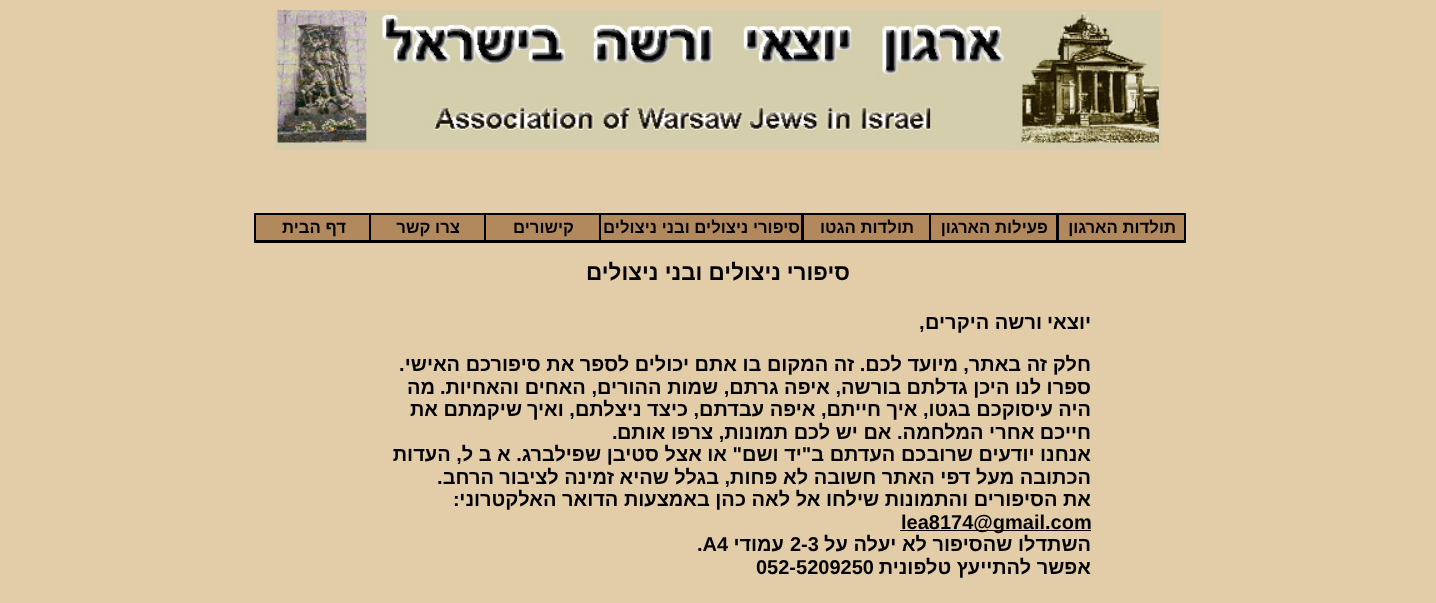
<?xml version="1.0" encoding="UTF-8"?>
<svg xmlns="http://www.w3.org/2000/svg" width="1436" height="603">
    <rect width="100%" height="100%" fill="#E3CCA8"/>
    <rect x="254" y="213" width="932" height="30" fill="#000000"/>
    <rect x="1059" y="215" width="125" height="25" fill="#B2885D"/>
    <text x="1176" y="233" font-family="Liberation Sans" font-size="16.75" font-weight="700" direction="rtl" fill="#000000">תולדות הארגון</text>
    <rect x="931" y="215" width="125" height="25" fill="#B2885D"/>
    <text x="1048" y="233" font-family="Liberation Sans" font-size="16.75" font-weight="700" direction="rtl" fill="#000000">פעילות הארגון</text>
    <rect x="804" y="215" width="125" height="25" fill="#B2885D"/>
    <text x="914" y="233" font-family="Liberation Sans" font-size="16.75" font-weight="700" direction="rtl" fill="#000000">תולדות הגטו</text>
    <rect x="601" y="215" width="200" height="25" fill="#B2885D"/>
    <text x="800" y="233" font-family="Liberation Sans" font-size="16.75" font-weight="700" direction="rtl" fill="#000000">סיפורי ניצולים ובני ניצולים</text>
    <rect x="486" y="215" width="113" height="25" fill="#B2885D"/>
    <text x="574" y="233" font-family="Liberation Sans" font-size="16.75" font-weight="700" direction="rtl" fill="#000000">קישורים</text>
    <rect x="371" y="215" width="113" height="25" fill="#B2885D"/>
    <text x="460" y="233" font-family="Liberation Sans" font-size="16.75" font-weight="700" direction="rtl" fill="#000000">צרו קשר</text>
    <rect x="256" y="215" width="113" height="25" fill="#B2885D"/>
    <text x="346" y="233" font-family="Liberation Sans" font-size="16.75" font-weight="700" direction="rtl" fill="#000000">דף הבית</text>
    <image x="275" y="10" width="887" height="140" href="img_01.png"/>
    <text x="850" y="280" font-family="Liberation Sans" font-size="22.5" font-weight="700" direction="rtl" fill="#000000">סיפורי</text>
    <text x="781" y="280" font-family="Liberation Sans" font-size="22.5" font-weight="700" direction="rtl" fill="#000000">ניצולים ובני ניצולים</text>
    <text x="1091" y="329" font-family="Liberation Sans" font-size="20" font-weight="700" direction="rtl" fill="#000000">יוצאי</text>
    <text x="1042" y="329" font-family="Liberation Sans" font-size="20" font-weight="700" direction="rtl" fill="#000000">ורשה היקרים</text>
    <text x="919" y="329" font-family="Liberation Sans" font-size="20" font-weight="700" fill="#000000">,</text>
    <text x="1091" y="371" font-family="Liberation Sans" font-size="20" font-weight="700" direction="rtl" fill="#000000">חלק זה באתר,</text>
    <text x="958" y="371" font-family="Liberation Sans" font-size="20" font-weight="700" direction="rtl" fill="#000000">מיועד לכם. זה המקום בו אתם יכולים לספר את סיפורכם האישי</text>
    <text x="399" y="371" font-family="Liberation Sans" font-size="20" font-weight="700" fill="#000000">.</text>
    <text x="1091" y="394" font-family="Liberation Sans" font-size="20" font-weight="700" direction="rtl" fill="#000000">ספרו לנו היכן גדלתם בורשה, איפה גרתם, שמות ההורים, האחים והאחיות.</text>
    <text x="435" y="394" font-family="Liberation Sans" font-size="20" font-weight="700" direction="rtl" fill="#000000">מה</text>
    <text x="1091" y="416" font-family="Liberation Sans" font-size="20" font-weight="700" direction="rtl" fill="#000000">היה עיסוקכם בגטו, איך חייתם, איפה עבדתם, כיצד ניצלתם, ואיך</text>
    <text x="522" y="416" font-family="Liberation Sans" font-size="20" font-weight="700" direction="rtl" fill="#000000">שיקמתם את</text>
    <text x="1091" y="439" font-family="Liberation Sans" font-size="20" font-weight="700" direction="rtl" fill="#000000">חייכם אחרי המלחמה. אם יש לכם תמונות, צרפו אותם</text>
    <text x="612" y="439" font-family="Liberation Sans" font-size="20" font-weight="700" fill="#000000">.</text>
    <text x="1091" y="461" font-family="Liberation Sans" font-size="20" font-weight="700" direction="rtl" fill="#000000">אנחנו יודעים שרובכם העדתם ב"יד ושם" או אצל סטיבן</text>
    <text x="601" y="461" font-family="Liberation Sans" font-size="20" font-weight="700" direction="rtl" fill="#000000">שפילברג. א ב ל, העדות</text>
    <text x="1091" y="484" font-family="Liberation Sans" font-size="20" font-weight="700" direction="rtl" fill="#000000">הכתובה מעל דפי האתר חשובה לא פחות, בגלל שהיא זמינה לציבור</text>
    <text x="494" y="484" font-family="Liberation Sans" font-size="20" font-weight="700" direction="rtl" fill="#000000">הרחב</text>
    <text x="437" y="484" font-family="Liberation Sans" font-size="20" font-weight="700" fill="#000000">.</text>
    <text x="1091" y="506" font-family="Liberation Sans" font-size="20" font-weight="700" direction="rtl" fill="#000000">את הסיפורים והתמונות שילחו אל לאה כהן באמצעות הדואר האלקטרוני</text>
    <text x="453" y="506" font-family="Liberation Sans" font-size="20" font-weight="700" fill="#000000">:</text>
    <rect x="900" y="530" width="191" height="1" fill="#000000"/>
    <text x="901" y="529" font-family="Liberation Sans" font-size="20" font-weight="700" fill="#000000">lea8174@gmail.com</text>
    <text x="1091" y="551" font-family="Liberation Sans" font-size="20" font-weight="700" direction="rtl" fill="#000000">השתדלו שהסיפור לא יעלה על</text>
    <text x="790" y="551" font-family="Liberation Sans" font-size="20" font-weight="700" fill="#000000">2-3</text>
    <text x="784" y="551" font-family="Liberation Sans" font-size="20" font-weight="700" direction="rtl" fill="#000000">עמודי</text>
    <text x="697" y="551" font-family="Liberation Sans" font-size="20" font-weight="700" fill="#000000">.A4</text>
    <text x="1091" y="574" font-family="Liberation Sans" font-size="20" font-weight="700" direction="rtl" fill="#000000">אפשר להתייעץ טלפונית</text>
    <text x="756" y="574" font-family="Liberation Sans" font-size="20" font-weight="700" fill="#000000">052-5209250</text>
</svg>
